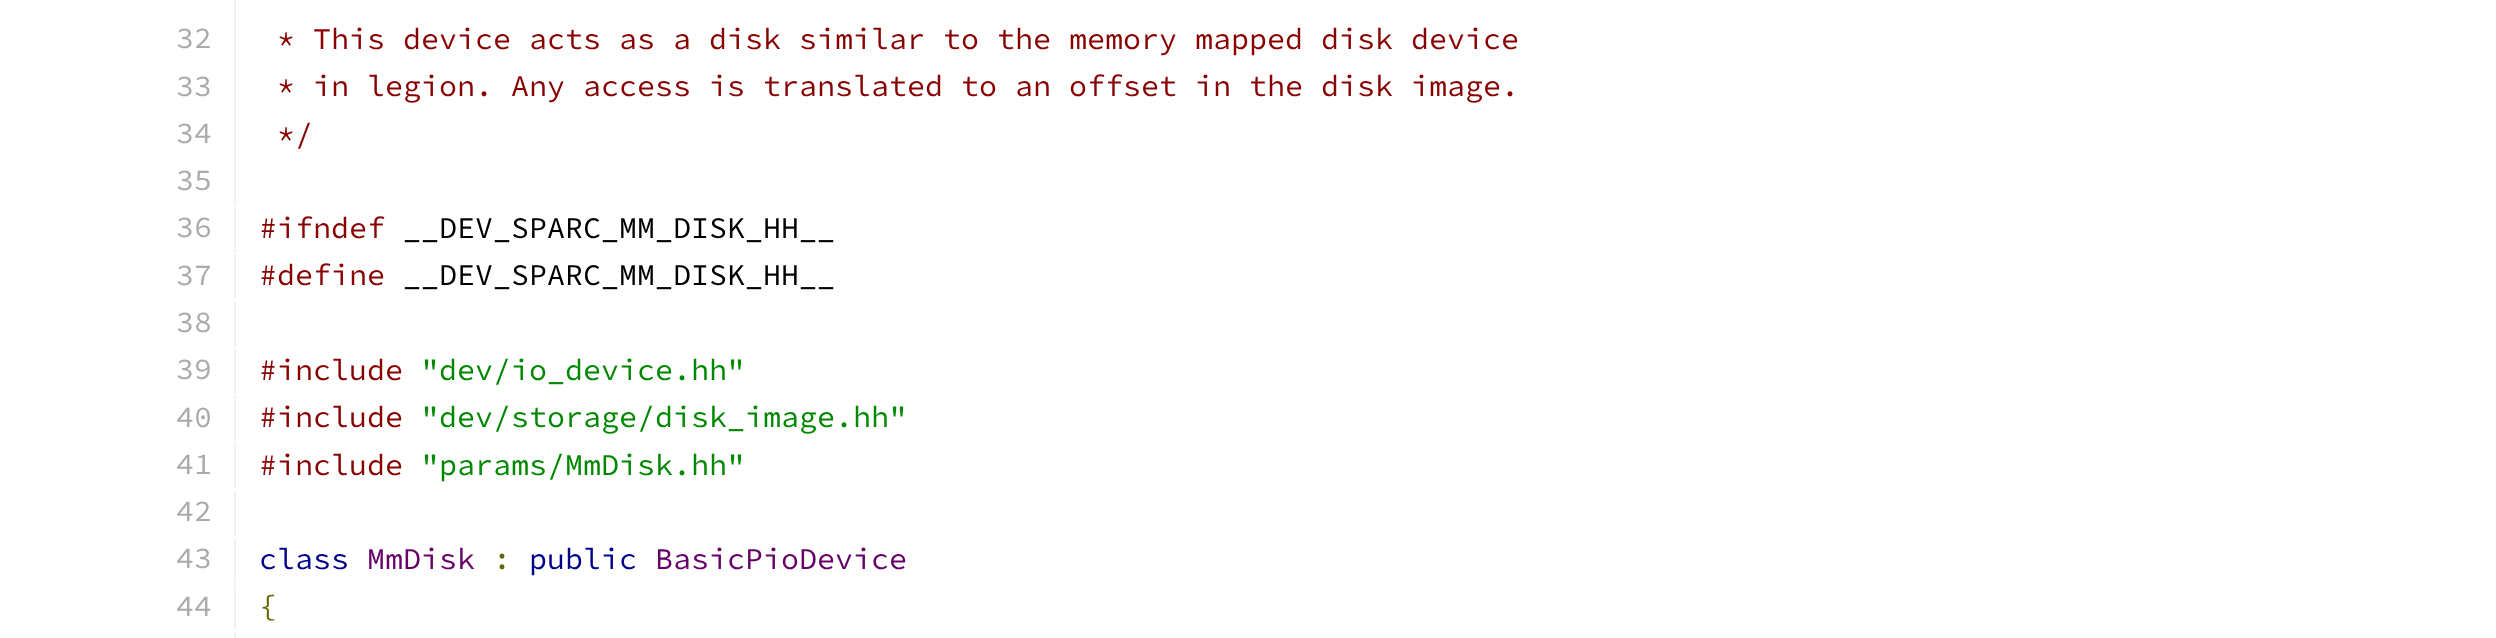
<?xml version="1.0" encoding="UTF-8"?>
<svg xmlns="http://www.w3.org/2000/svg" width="2496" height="638">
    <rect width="100%" height="100%" fill="#FFFFFF"/>
    <rect x="234" y="0" width="2" height="205" fill="#F1F2F3"/>
    <text x="176" y="48" font-family="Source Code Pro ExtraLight" font-size="30" font-weight="200" fill="#AAAAAA">32</text>
    <text x="277" y="49" font-family="Source Code Pro ExtraLight" font-size="30" font-weight="200" fill="#880000">* This device acts as a disk similar to the memory mapped disk device</text>
    <text x="176" y="96" font-family="Source Code Pro ExtraLight" font-size="30" font-weight="200" fill="#AAAAAA">33</text>
    <text x="277" y="96" font-family="Source Code Pro ExtraLight" font-size="30" font-weight="200" fill="#880000">* in legion. Any access is translated to an offset in the disk image.</text>
    <text x="176" y="143" font-family="Source Code Pro ExtraLight" font-size="30" font-weight="200" fill="#AAAAAA">34</text>
    <text x="277" y="144" font-family="Source Code Pro ExtraLight" font-size="30" font-weight="200" fill="#880000">*/</text>
    <text x="176" y="190" font-family="Source Code Pro ExtraLight" font-size="30" font-weight="200" fill="#AAAAAA">35</text>
    <rect x="234" y="207" width="2" height="45" fill="#F1F2F3"/>
    <text x="176" y="237" font-family="Source Code Pro ExtraLight" font-size="30" font-weight="200" fill="#AAAAAA">36</text>
    <text x="259" y="238" font-family="Source Code Pro ExtraLight" font-size="30" font-weight="200" fill="#880000">#ifndef</text>
    <text x="403" y="238" font-family="Source Code Pro ExtraLight" font-size="30" font-weight="200" fill="#000000">__DEV_SPARC_MM_DISK_HH__</text>
    <rect x="234" y="254" width="2" height="45" fill="#F1F2F3"/>
    <text x="176" y="285" font-family="Source Code Pro ExtraLight" font-size="30" font-weight="200" fill="#AAAAAA">37</text>
    <text x="259" y="285" font-family="Source Code Pro ExtraLight" font-size="30" font-weight="200" fill="#880000">#define</text>
    <text x="403" y="285" font-family="Source Code Pro ExtraLight" font-size="30" font-weight="200" fill="#000000">__DEV_SPARC_MM_DISK_HH__</text>
    <rect x="234" y="302" width="2" height="45" fill="#F1F2F3"/>
    <text x="176" y="332" font-family="Source Code Pro ExtraLight" font-size="30" font-weight="200" fill="#AAAAAA">38</text>
    <rect x="234" y="349" width="2" height="45" fill="#F1F2F3"/>
    <text x="176" y="379" font-family="Source Code Pro ExtraLight" font-size="30" font-weight="200" fill="#AAAAAA">39</text>
    <text x="259" y="380" font-family="Source Code Pro ExtraLight" font-size="30" font-weight="200" fill="#880000">#include</text>
    <text x="421" y="380" font-family="Source Code Pro ExtraLight" font-size="30" font-weight="200" fill="#008800">"dev/io_device.hh"</text>
    <rect x="234" y="396" width="2" height="45" fill="#F1F2F3"/>
    <text x="176" y="427" font-family="Source Code Pro ExtraLight" font-size="30" font-weight="200" fill="#AAAAAA">40</text>
    <text x="259" y="427" font-family="Source Code Pro ExtraLight" font-size="30" font-weight="200" fill="#880000">#include</text>
    <text x="421" y="427" font-family="Source Code Pro ExtraLight" font-size="30" font-weight="200" fill="#008800">"dev/storage/disk_image.hh"</text>
    <rect x="234" y="443" width="2" height="45" fill="#F1F2F3"/>
    <text x="176" y="474" font-family="Source Code Pro ExtraLight" font-size="30" font-weight="200" fill="#AAAAAA">41</text>
    <text x="259" y="475" font-family="Source Code Pro ExtraLight" font-size="30" font-weight="200" fill="#880000">#include</text>
    <text x="421" y="475" font-family="Source Code Pro ExtraLight" font-size="30" font-weight="200" fill="#008800">"params/MmDisk.hh"</text>
    <rect x="234" y="491" width="2" height="45" fill="#F1F2F3"/>
    <text x="176" y="521" font-family="Source Code Pro ExtraLight" font-size="30" font-weight="200" fill="#AAAAAA">42</text>
    <rect x="234" y="538" width="2" height="45" fill="#F1F2F3"/>
    <text x="176" y="568" font-family="Source Code Pro ExtraLight" font-size="30" font-weight="200" fill="#AAAAAA">43</text>
    <text x="259" y="569" font-family="Source Code Pro ExtraLight" font-size="30" font-weight="200" fill="#000088">class</text>
    <text x="367" y="569" font-family="Source Code Pro ExtraLight" font-size="30" font-weight="200" fill="#660066">MmDisk</text>
    <text x="493" y="569" font-family="Source Code Pro ExtraLight" font-size="30" font-weight="200" fill="#666600">:</text>
    <text x="529" y="569" font-family="Source Code Pro ExtraLight" font-size="30" font-weight="200" fill="#000088">public</text>
    <text x="655" y="569" font-family="Source Code Pro ExtraLight" font-size="30" font-weight="200" fill="#660066">BasicPioDevice</text>
    <rect x="234" y="585" width="2" height="45" fill="#F1F2F3"/>
    <text x="176" y="616" font-family="Source Code Pro ExtraLight" font-size="30" font-weight="200" fill="#AAAAAA">44</text>
    <text x="259" y="616" font-family="Source Code Pro ExtraLight" font-size="30" font-weight="200" fill="#666600">{</text>
    <rect x="234" y="632" width="2" height="6" fill="#F1F2F3"/>
</svg>
